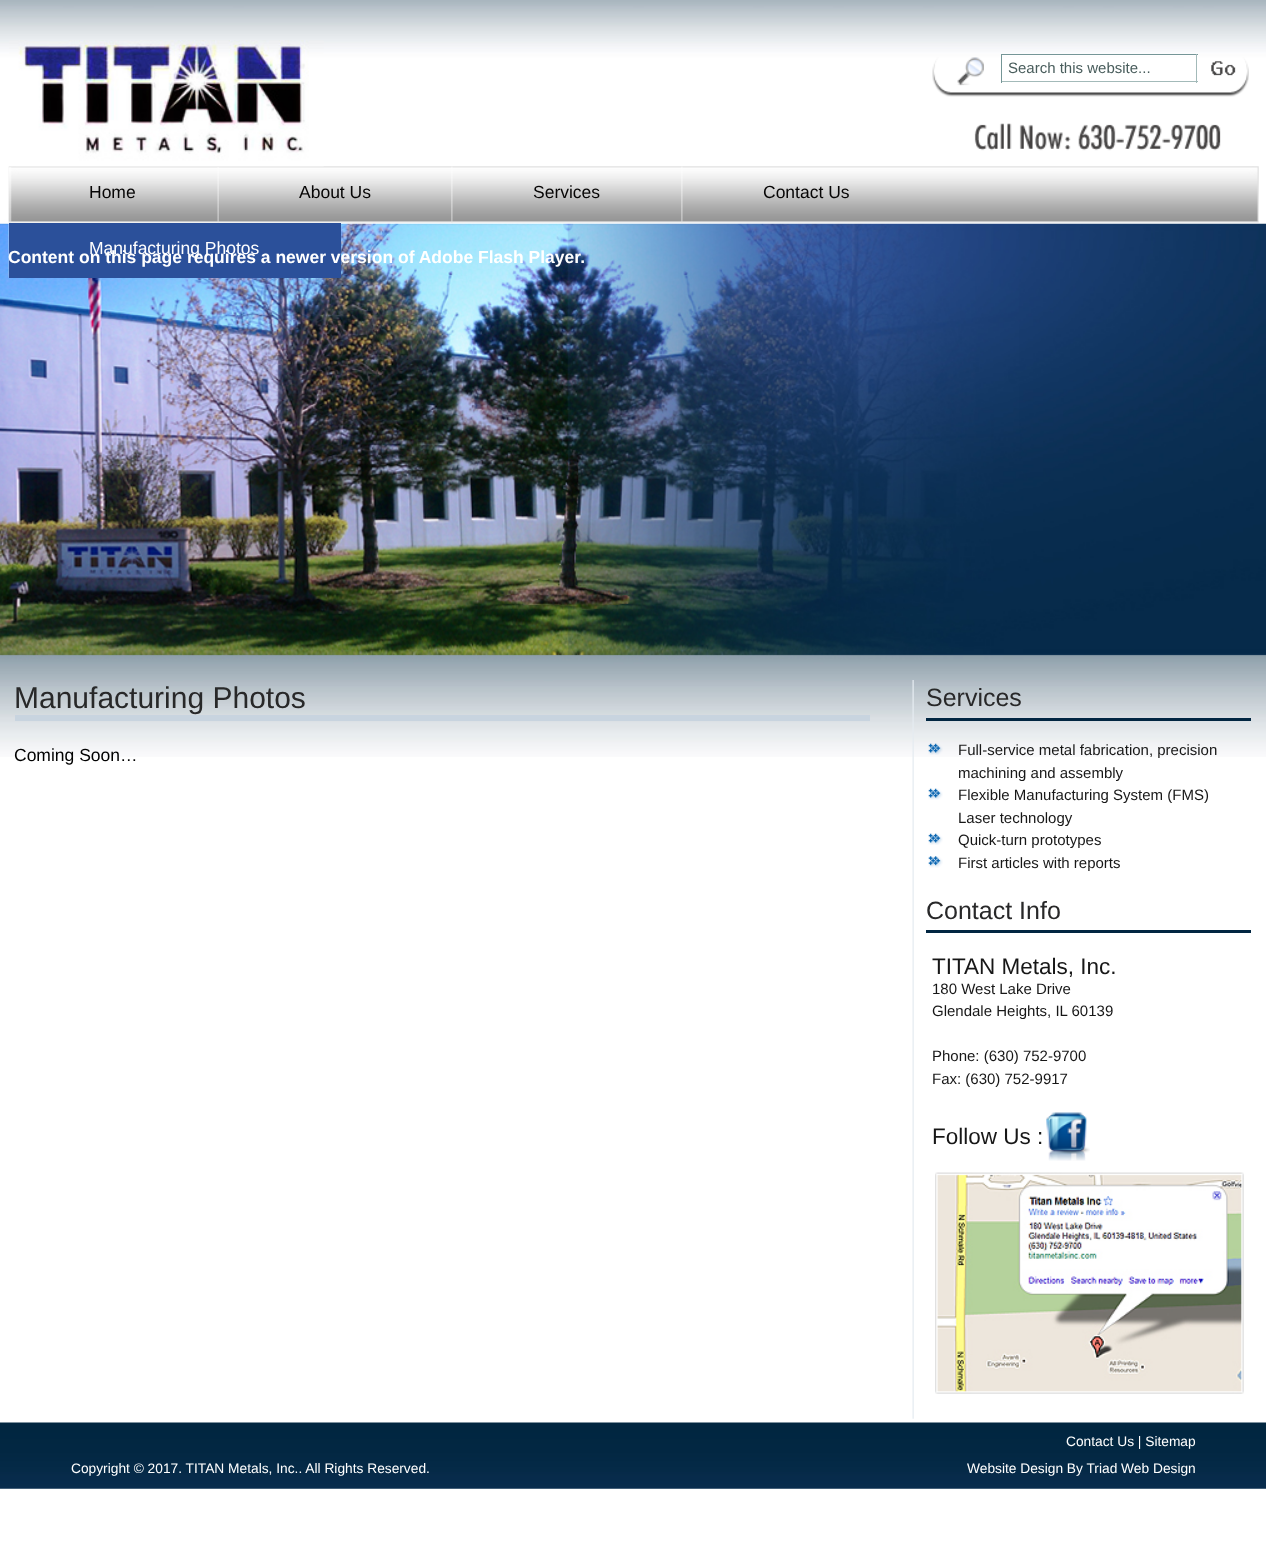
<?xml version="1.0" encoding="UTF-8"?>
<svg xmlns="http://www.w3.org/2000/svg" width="1266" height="1552">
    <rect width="100%" height="100%" fill="#FFFFFF"/>
    <image x="0" y="0" width="1266" height="757" href="img_01.png"/>
    <image x="8" y="166" width="1251" height="57" href="img_05.png"/>
    <image x="9" y="40" width="315" height="127" href="img_02.png"/>
    <image x="932" y="57" width="317" height="40" href="img_03.png"/>
    <rect x="1002" y="55" width="196" height="1" fill="#FFFFFF"/>
    <rect x="1001" y="54" width="197" height="1" fill="#759697"/>
    <rect x="1196" y="54" width="1" height="29" fill="#A3BAB9"/>
    <rect x="1001" y="81" width="197" height="1" fill="#A3BAB9"/>
    <rect x="1001" y="54" width="1" height="29" fill="#759697"/>
    <text x="1008" y="73" font-family="Liberation Sans" font-size="15" fill="#495D5C">Search this website...</text>
    <image x="974" y="123" width="247" height="28" href="img_04.png"/>
    <image x="8" y="167" width="4" height="56" href="img_06.png"/>
    <text x="89" y="198" font-family="Liberation Sans" font-size="17.5" fill="#060505">Home</text>
    <image x="217" y="167" width="2" height="56" href="img_07.png"/>
    <text x="299" y="198" font-family="Liberation Sans" font-size="17.5" fill="#060505">About Us</text>
    <image x="451" y="166" width="2" height="57" href="img_08.png"/>
    <text x="533" y="198" font-family="Liberation Sans" font-size="17.5" fill="#060505">Services</text>
    <image x="681" y="166" width="2" height="57" href="img_09.png"/>
    <text x="763" y="198" font-family="Liberation Sans" font-size="17.5" fill="#060505">Contact Us</text>
    <image x="8" y="223" width="1" height="55" href="img_10.png"/>
    <rect x="9" y="223" width="332" height="55" fill="#2B509A"/>
    <text x="89" y="254" font-family="Liberation Sans" font-size="17.5" fill="#FFFFFF">Manufacturing Photos</text>
    <text x="8" y="263" font-family="Liberation Sans" font-size="17.5" font-weight="700" fill="#FFFFFF">Content on this page requires a newer version of Adobe Flash Player.</text>
    <rect x="15" y="715" width="855" height="6" fill="#C8D4DF"/>
    <text x="14" y="708" font-family="Liberation Sans" font-size="30" fill="#282829">Manufacturing Photos</text>
    <text x="14" y="761" font-family="Liberation Sans" font-size="17.5" fill="#000000">Coming Soon…</text>
    <image x="912" y="680" width="2" height="739" href="img_11.png"/>
    <rect x="926" y="718" width="325" height="3" fill="#012641"/>
    <text x="926" y="706" font-family="Liberation Sans" font-size="25" fill="#282829">Services</text>
    <image x="928" y="743" width="15" height="12" href="img_12.png"/>
    <text font-family="Liberation Sans" font-size="15" fill="#171717">
        <tspan x="958" y="755">Full-service metal fabrication, precision</tspan>
        <tspan x="958" y="778">machining and assembly</tspan>
    </text>
    <image x="928" y="788" width="15" height="12" href="img_13.png"/>
    <text font-family="Liberation Sans" font-size="15" fill="#171717">
        <tspan x="958" y="800">Flexible Manufacturing System (FMS)</tspan>
        <tspan x="958" y="823">Laser technology</tspan>
    </text>
    <image x="928" y="833" width="15" height="12" href="img_13.png"/>
    <text x="958" y="845" font-family="Liberation Sans" font-size="15" fill="#171717">Quick-turn prototypes</text>
    <image x="928" y="856" width="15" height="12" href="img_14.png"/>
    <text x="958" y="868" font-family="Liberation Sans" font-size="15" fill="#171717">First articles with reports</text>
    <rect x="926" y="930" width="325" height="3" fill="#012641"/>
    <text x="926" y="919" font-family="Liberation Sans" font-size="25" fill="#282829">Contact Info</text>
    <text x="932" y="974" font-family="Liberation Sans" font-size="22.5" fill="#171717">TITAN Metals, Inc.</text>
    <text font-family="Liberation Sans" font-size="15" fill="#171717">
        <tspan x="932" y="994">180 West Lake Drive</tspan>
        <tspan x="932" y="1016">Glendale Heights, IL 60139</tspan>
    </text>
    <text font-family="Liberation Sans" font-size="15" fill="#171717">
        <tspan x="932" y="1061">Phone: (630) 752-9700</tspan>
        <tspan x="932" y="1084">Fax: (630) 752-9917</tspan>
    </text>
    <text x="932" y="1144" font-family="Liberation Sans" font-size="22.5" fill="#171717">Follow Us :</text>
    <image x="1046" y="1112" width="44" height="49" href="img_15.png"/>
    <image x="935" y="1172" width="309" height="222" href="img_16.png"/>
    <image x="0" y="1422" width="1266" height="67" href="img_17.png"/>
    <text x="1066" y="1446" font-family="Liberation Sans" font-size="13.75" fill="#FFFFFF">Contact Us | Sitemap</text>
    <text x="71" y="1473" font-family="Liberation Sans" font-size="13.75" fill="#FFFFFF">Copyright © 2017. TITAN Metals, Inc.. All Rights Reserved.</text>
    <text x="967" y="1473" font-family="Liberation Sans" font-size="13.75" fill="#FFFFFF">Website Design By Triad Web Design</text>
</svg>
